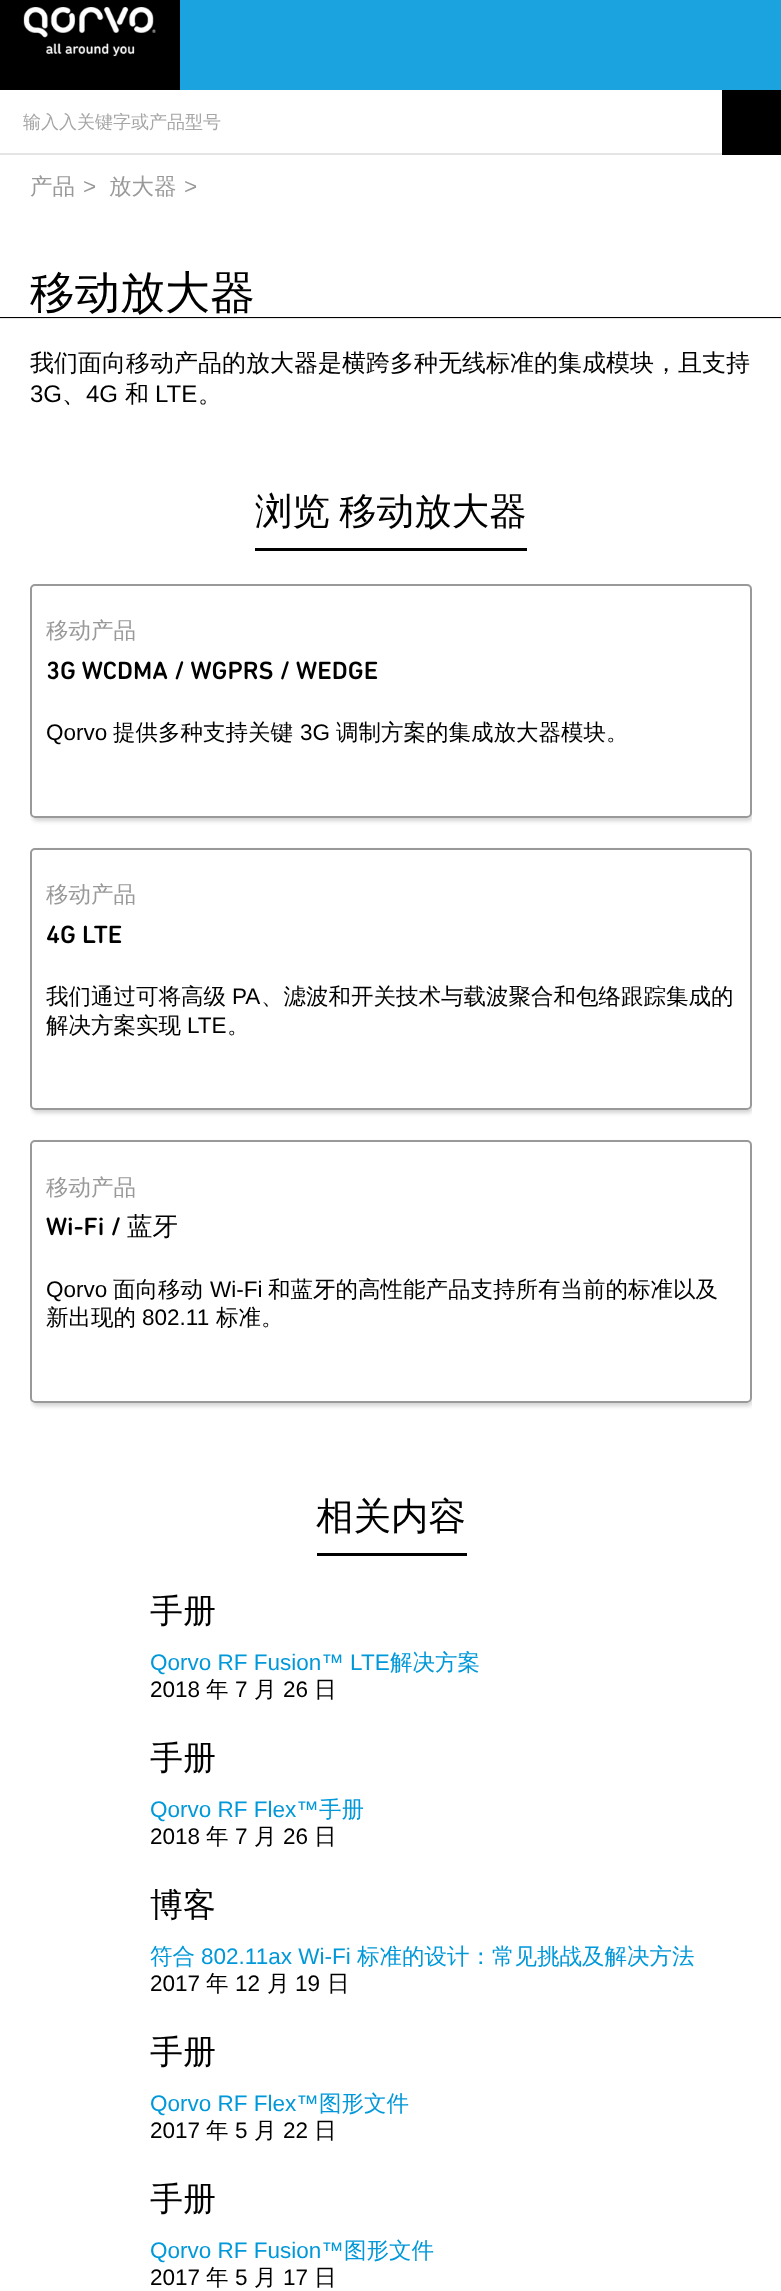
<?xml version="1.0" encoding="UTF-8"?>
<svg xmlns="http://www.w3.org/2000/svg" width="781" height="2291">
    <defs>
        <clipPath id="clip1"><rect x="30" y="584" width="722" height="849"/></clipPath>
        <clipPath id="clip2"><path d="M 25 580 H 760 V 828 H 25 Z M 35 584 H 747 C 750 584 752 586 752 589 V 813 C 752 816 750 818 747 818 H 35 C 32 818 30 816 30 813 V 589 C 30 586 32 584 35 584 Z" clip-rule="evenodd"/></clipPath>
        <filter id="blur1" x="-50%" y="-200%" width="200%" height="500%"><feGaussianBlur stdDeviation="2"/></filter>
        <clipPath id="clip3"><path d="M 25 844 H 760 V 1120 H 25 Z M 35 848 H 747 C 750 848 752 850 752 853 V 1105 C 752 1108 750 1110 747 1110 H 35 C 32 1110 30 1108 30 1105 V 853 C 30 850 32 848 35 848 Z" clip-rule="evenodd"/></clipPath>
        <clipPath id="clip4"><path d="M 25 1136 H 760 V 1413 H 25 Z M 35 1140 H 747 C 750 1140 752 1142 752 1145 V 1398 C 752 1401 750 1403 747 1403 H 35 C 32 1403 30 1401 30 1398 V 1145 C 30 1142 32 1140 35 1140 Z" clip-rule="evenodd"/></clipPath>
    </defs>
    <rect width="100%" height="100%" fill="#FFFFFF"/>
    <rect x="180" y="0" width="601" height="90" fill="#1AA3DE"/>
    <rect x="0" y="0" width="180" height="90" fill="#000000"/>
    <image x="23" y="7" width="133" height="50" href="img_01.png"/>
    <rect x="0" y="153" width="722" height="2" fill="#E5E5E5"/>
    <text x="23" y="128" font-family="WenQuanYi Zen Hei" font-size="18" font-weight="500" fill="#A6A6A6">输入入关键字或产品型号</text>
    <rect x="722" y="90" width="59" height="65" fill="#000000"/>
    <rect x="0" y="317" width="781" height="1" fill="#000000"/>
    <rect x="0" y="318" width="781" height="1" fill="#E6E6E6"/>
    <text x="30" y="194" font-family="WenQuanYi Zen Hei" font-size="22.5" font-weight="500" fill="#999999">产品</text>
    <text x="83" y="194" font-family="Liberation Sans" font-size="22.5" fill="#999999">&gt;</text>
    <text x="109" y="194" font-family="WenQuanYi Zen Hei" font-size="22.5" font-weight="500" fill="#999999">放大器</text>
    <text x="184" y="194" font-family="Liberation Sans" font-size="22.5" fill="#999999">&gt;</text>
    <text x="30" y="308" font-family="WenQuanYi Zen Hei" font-size="45" font-weight="500" fill="#000000">移动放大器</text>
    <text x="30" y="371" font-family="WenQuanYi Zen Hei" font-size="24" font-weight="500" fill="#000000">我们面向移动产品的放大器是横跨多种无线标准的集成模块，且支持</text>
    <text x="30" y="402" font-family="Liberation Sans" font-size="24" fill="#000000">3G</text>
    <text x="62" y="402" font-family="WenQuanYi Zen Hei" font-size="24" font-weight="500" fill="#000000">、</text>
    <text x="86" y="402" font-family="Liberation Sans" font-size="24" fill="#000000">4G</text>
    <text x="125" y="402" font-family="WenQuanYi Zen Hei" font-size="24" font-weight="500" fill="#000000">和</text>
    <text x="155" y="402" font-family="Liberation Sans" font-size="24" fill="#000000">LTE</text>
    <text x="198" y="402" font-family="WenQuanYi Zen Hei" font-size="24" font-weight="500" fill="#000000">。</text>
    <rect x="255" y="548" width="272" height="3" fill="#000000"/>
    <text x="255" y="524" word-spacing="-2" font-family="WenQuanYi Zen Hei" font-size="37.5" font-weight="500" fill="#000000">浏览 移动放大器</text>
    <g clip-path="url(#clip1)">
        <g clip-path="url(#clip2)">
            <rect x="32" y="587" width="721" height="234" rx="5" fill="#D3D3D3" filter="url(#blur1)"/>
        </g>
    </g>
    <rect x="31" y="585" width="720" height="232" rx="4" fill="none" stroke="#999999" stroke-width="2"/>
    <text x="46" y="638" font-family="WenQuanYi Zen Hei" font-size="22.5" font-weight="500" fill="#999999">移动产品</text>
    <text x="46" y="679" font-family="'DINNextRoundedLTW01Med'" font-size="25.5" font-weight="500" fill="#000000">3G WCDMA / WGPRS / WEDGE</text>
    <text x="46" y="740" font-family="Liberation Sans" font-size="22.5" fill="#000000">Qorvo</text>
    <text x="113" y="740" font-family="WenQuanYi Zen Hei" font-size="22.5" font-weight="500" fill="#000000">提供多种支持关键</text>
    <text x="300" y="740" font-family="Liberation Sans" font-size="22.5" fill="#000000">3G</text>
    <text x="336" y="740" font-family="WenQuanYi Zen Hei" font-size="22.5" font-weight="500" fill="#000000">调制方案的集成放大器模块。</text>
    <g clip-path="url(#clip1)">
        <g clip-path="url(#clip3)">
            <rect x="32" y="851" width="721" height="262" rx="5" fill="#D3D3D3" filter="url(#blur1)"/>
        </g>
    </g>
    <rect x="31" y="849" width="720" height="260" rx="4" fill="none" stroke="#999999" stroke-width="2"/>
    <text x="46" y="902" font-family="WenQuanYi Zen Hei" font-size="22.5" font-weight="500" fill="#999999">移动产品</text>
    <text x="46" y="943" font-family="'DINNextRoundedLTW01Med'" font-size="25.5" font-weight="500" fill="#000000">4G LTE</text>
    <text x="46" y="1004" font-family="WenQuanYi Zen Hei" font-size="22.5" font-weight="500" fill="#000000">我们通过可将高级</text>
    <text x="232" y="1004" font-family="Liberation Sans" font-size="22.5" fill="#000000">PA</text>
    <text x="261" y="1004" font-family="WenQuanYi Zen Hei" font-size="22.5" font-weight="500" fill="#000000">、滤波和开关技术与载波聚合和包络跟踪集成的</text>
    <text x="46" y="1033" font-family="WenQuanYi Zen Hei" font-size="22.5" font-weight="500" fill="#000000">解决方案实现</text>
    <text x="187" y="1033" font-family="Liberation Sans" font-size="22.5" fill="#000000">LTE</text>
    <text x="227" y="1033" font-family="WenQuanYi Zen Hei" font-size="22.5" font-weight="500" fill="#000000">。</text>
    <g clip-path="url(#clip1)">
        <g clip-path="url(#clip4)">
            <rect x="32" y="1143" width="721" height="263" rx="5" fill="#D3D3D3" filter="url(#blur1)"/>
        </g>
    </g>
    <rect x="31" y="1141" width="720" height="261" rx="4" fill="none" stroke="#999999" stroke-width="2"/>
    <text x="46" y="1195" font-family="WenQuanYi Zen Hei" font-size="22.5" font-weight="500" fill="#999999">移动产品</text>
    <text x="46" y="1235" font-family="'DINNextRoundedLTW01Med'" font-size="25.5" font-weight="500" fill="#000000">Wi-Fi /</text>
    <text x="127" y="1235" font-family="WenQuanYi Zen Hei" font-size="25.5" font-weight="500" fill="#000000">蓝牙</text>
    <text x="46" y="1297" font-family="Liberation Sans" font-size="22.5" fill="#000000">Qorvo</text>
    <text x="113" y="1297" font-family="WenQuanYi Zen Hei" font-size="22.5" font-weight="500" fill="#000000">面向移动</text>
    <text x="210" y="1297" font-family="Liberation Sans" font-size="22.5" fill="#000000">Wi-Fi</text>
    <text x="268" y="1297" font-family="WenQuanYi Zen Hei" font-size="22.5" font-weight="500" fill="#000000">和蓝牙的高性能产品支持所有当前的标准以及</text>
    <text x="46" y="1325" font-family="WenQuanYi Zen Hei" font-size="22.5" font-weight="500" fill="#000000">新出现的</text>
    <text x="142" y="1325" font-family="Liberation Sans" font-size="22.5" fill="#000000">802.11</text>
    <text x="216" y="1325" font-family="WenQuanYi Zen Hei" font-size="22.5" font-weight="500" fill="#000000">标准。</text>
    <rect x="317" y="1553" width="150" height="3" fill="#000000"/>
    <text x="316" y="1529" font-family="WenQuanYi Zen Hei" font-size="37.5" font-weight="500" fill="#000000">相关内容</text>
    <text x="150" y="1622" font-family="WenQuanYi Zen Hei" font-size="33" font-weight="500" fill="#000000">手册</text>
    <text x="150" y="1670" font-family="Liberation Sans" font-size="22.5" fill="#0198D9">Qorvo RF Fusion™ LTE</text>
    <text x="390" y="1670" font-family="WenQuanYi Zen Hei" font-size="22.5" font-weight="500" fill="#0198D9">解决方案</text>
    <text x="150" y="1697" font-family="Liberation Sans" font-size="22.5" fill="#000000">2018</text>
    <text x="206" y="1697" font-family="WenQuanYi Zen Hei" font-size="22.5" font-weight="500" fill="#000000">年</text>
    <text x="235" y="1697" font-family="Liberation Sans" font-size="22.5" fill="#000000">7</text>
    <text x="254" y="1697" font-family="WenQuanYi Zen Hei" font-size="22.5" font-weight="500" fill="#000000">月</text>
    <text x="283" y="1697" font-family="Liberation Sans" font-size="22.5" fill="#000000">26</text>
    <text x="314" y="1697" font-family="WenQuanYi Zen Hei" font-size="22.5" font-weight="500" fill="#000000">日</text>
    <text x="150" y="1769" font-family="WenQuanYi Zen Hei" font-size="33" font-weight="500" fill="#000000">手册</text>
    <text x="150" y="1817" font-family="Liberation Sans" font-size="22.5" fill="#0198D9">Qorvo RF Flex™</text>
    <text x="319" y="1817" font-family="WenQuanYi Zen Hei" font-size="22.5" font-weight="500" fill="#0198D9">手册</text>
    <text x="150" y="1844" font-family="Liberation Sans" font-size="22.5" fill="#000000">2018</text>
    <text x="206" y="1844" font-family="WenQuanYi Zen Hei" font-size="22.5" font-weight="500" fill="#000000">年</text>
    <text x="235" y="1844" font-family="Liberation Sans" font-size="22.5" fill="#000000">7</text>
    <text x="254" y="1844" font-family="WenQuanYi Zen Hei" font-size="22.5" font-weight="500" fill="#000000">月</text>
    <text x="283" y="1844" font-family="Liberation Sans" font-size="22.5" fill="#000000">26</text>
    <text x="314" y="1844" font-family="WenQuanYi Zen Hei" font-size="22.5" font-weight="500" fill="#000000">日</text>
    <text x="150" y="1916" font-family="WenQuanYi Zen Hei" font-size="33" font-weight="500" fill="#000000">博客</text>
    <text x="150" y="1964" font-family="WenQuanYi Zen Hei" font-size="22.5" font-weight="500" fill="#0198D9">符合</text>
    <text x="201" y="1964" font-family="Liberation Sans" font-size="22.5" fill="#0198D9">802.11ax Wi-Fi</text>
    <text x="357" y="1964" font-family="WenQuanYi Zen Hei" font-size="22.5" font-weight="500" fill="#0198D9">标准的设计：常见挑战及解决方法</text>
    <text x="150" y="1991" font-family="Liberation Sans" font-size="22.5" fill="#000000">2017</text>
    <text x="206" y="1991" font-family="WenQuanYi Zen Hei" font-size="22.5" font-weight="500" fill="#000000">年</text>
    <text x="235" y="1991" font-family="Liberation Sans" font-size="22.5" fill="#000000">12</text>
    <text x="267" y="1991" font-family="WenQuanYi Zen Hei" font-size="22.5" font-weight="500" fill="#000000">月</text>
    <text x="295" y="1991" font-family="Liberation Sans" font-size="22.5" fill="#000000">19</text>
    <text x="327" y="1991" font-family="WenQuanYi Zen Hei" font-size="22.5" font-weight="500" fill="#000000">日</text>
    <text x="150" y="2063" font-family="WenQuanYi Zen Hei" font-size="33" font-weight="500" fill="#000000">手册</text>
    <text x="150" y="2111" font-family="Liberation Sans" font-size="22.5" fill="#0198D9">Qorvo RF Flex™</text>
    <text x="319" y="2111" font-family="WenQuanYi Zen Hei" font-size="22.5" font-weight="500" fill="#0198D9">图形文件</text>
    <text x="150" y="2138" font-family="Liberation Sans" font-size="22.5" fill="#000000">2017</text>
    <text x="206" y="2138" font-family="WenQuanYi Zen Hei" font-size="22.5" font-weight="500" fill="#000000">年</text>
    <text x="235" y="2138" font-family="Liberation Sans" font-size="22.5" fill="#000000">5</text>
    <text x="254" y="2138" font-family="WenQuanYi Zen Hei" font-size="22.5" font-weight="500" fill="#000000">月</text>
    <text x="283" y="2138" font-family="Liberation Sans" font-size="22.5" fill="#000000">22</text>
    <text x="314" y="2138" font-family="WenQuanYi Zen Hei" font-size="22.5" font-weight="500" fill="#000000">日</text>
    <text x="150" y="2210" font-family="WenQuanYi Zen Hei" font-size="33" font-weight="500" fill="#000000">手册</text>
    <text x="150" y="2258" font-family="Liberation Sans" font-size="22.5" fill="#0198D9">Qorvo RF Fusion™</text>
    <text x="344" y="2258" font-family="WenQuanYi Zen Hei" font-size="22.5" font-weight="500" fill="#0198D9">图形文件</text>
    <text x="150" y="2285" font-family="Liberation Sans" font-size="22.5" fill="#000000">2017</text>
    <text x="206" y="2285" font-family="WenQuanYi Zen Hei" font-size="22.5" font-weight="500" fill="#000000">年</text>
    <text x="235" y="2285" font-family="Liberation Sans" font-size="22.5" fill="#000000">5</text>
    <text x="254" y="2285" font-family="WenQuanYi Zen Hei" font-size="22.5" font-weight="500" fill="#000000">月</text>
    <text x="283" y="2285" font-family="Liberation Sans" font-size="22.5" fill="#000000">17</text>
    <text x="314" y="2285" font-family="WenQuanYi Zen Hei" font-size="22.5" font-weight="500" fill="#000000">日</text>
</svg>
